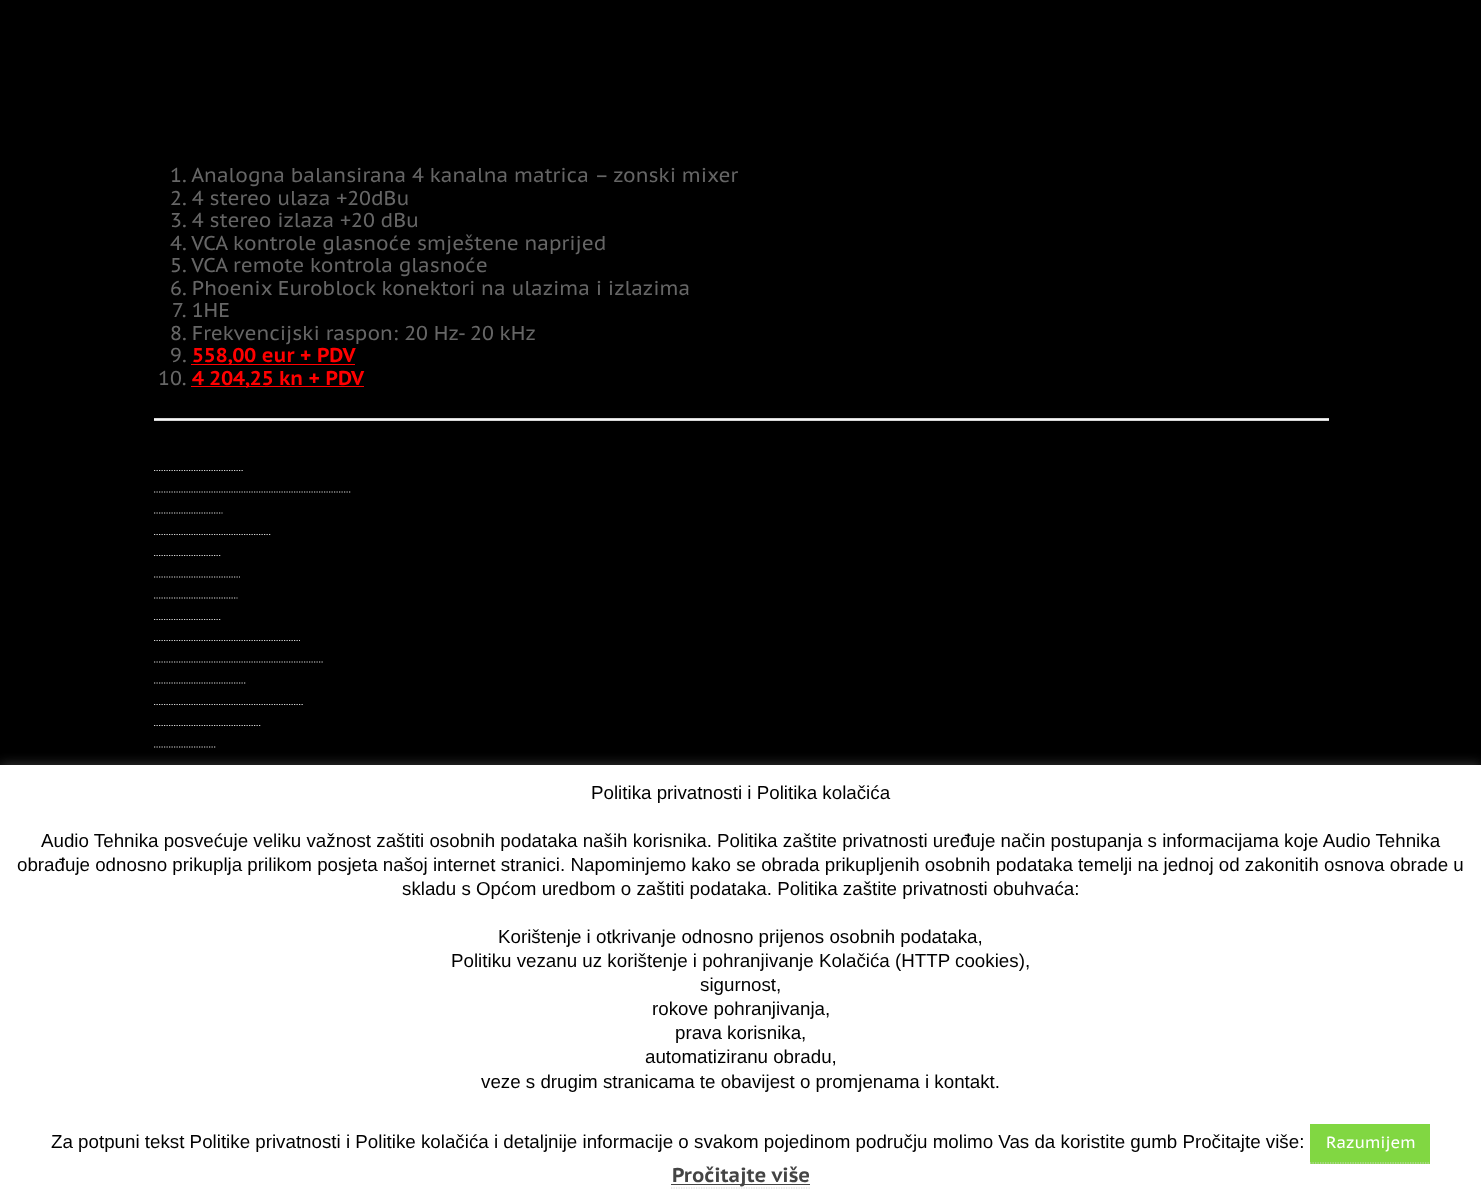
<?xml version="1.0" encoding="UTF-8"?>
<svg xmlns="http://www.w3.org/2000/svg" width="1481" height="1202">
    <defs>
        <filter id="blur1" x="-50%" y="-200%" width="200%" height="500%"><feGaussianBlur stdDeviation="6"/></filter>
    </defs>
    <rect width="100%" height="100%" fill="#000000"/>
    <text font-family="PT Sans Caption" font-size="20" fill="#666666">
        <tspan x="170" y="182">1. Analogna balansirana 4 kanalna matrica – zonski mixer</tspan>
        <tspan x="170" y="205">2. 4 stereo ulaza +20dBu</tspan>
        <tspan x="170" y="227">3. 4 stereo izlaza +20 dBu</tspan>
        <tspan x="170" y="250">4. VCA kontrole glasnoće smještene naprijed</tspan>
        <tspan x="170" y="272">5. VCA remote kontrola glasnoće</tspan>
        <tspan x="170" y="295">6. Phoenix Euroblock konektori na ulazima i izlazima</tspan>
    </text>
    <text x="172" y="317" font-family="PT Sans Caption" font-size="20" fill="#666666">7. 1HE</text>
    <text font-family="PT Sans Caption" font-size="20" fill="#666666">
        <tspan x="170" y="340">8. Frekvencijski raspon: 20 Hz- 20 kHz</tspan>
        <tspan x="170" y="362">9.</tspan>
    </text>
    <rect x="191" y="364" width="164" height="1" fill="#FF0000"/>
    <text x="192" y="362" font-family="PT Sans Caption" font-size="20" font-weight="700" fill="#FF0000">558,00 eur + PDV</text>
    <text x="158" y="385" font-family="PT Sans Caption" font-size="20" fill="#666666">10.</text>
    <rect x="191" y="386" width="173" height="1" fill="#FF0000"/>
    <text x="192" y="385" font-family="PT Sans Caption" font-size="20" font-weight="700" fill="#FF0000">4 204,25 kn + PDV</text>
    <rect x="154" y="418" width="1175" height="3" fill="#D5D5D5"/>
    <rect x="154" y="419" width="1175" height="1" fill="#F8F8F8"/>
    <path d="M 154 470.5 H 244" fill="none" stroke="#D5D5D5" stroke-width="1.2" stroke-dasharray="1.25 1.25"/>
    <path d="M 154 492 H 351" fill="none" stroke="#D5D5D5" stroke-width="1.2" stroke-dasharray="1.25 1.25"/>
    <path d="M 154 513 H 222.5" fill="none" stroke="#D5D5D5" stroke-width="1.2" stroke-dasharray="1.25 1.25"/>
    <path d="M 154 534.5 H 271" fill="none" stroke="#D5D5D5" stroke-width="1.2" stroke-dasharray="1.25 1.25"/>
    <path d="M 154 555.5 H 221" fill="none" stroke="#D5D5D5" stroke-width="1.2" stroke-dasharray="1.25 1.25"/>
    <path d="M 154 577 H 240" fill="none" stroke="#D5D5D5" stroke-width="1.2" stroke-dasharray="1.25 1.25"/>
    <path d="M 154 598 H 237.5" fill="none" stroke="#D5D5D5" stroke-width="1.2" stroke-dasharray="1.25 1.25"/>
    <path d="M 154 619.5 H 221" fill="none" stroke="#D5D5D5" stroke-width="1.2" stroke-dasharray="1.25 1.25"/>
    <path d="M 154 640.5 H 300" fill="none" stroke="#D5D5D5" stroke-width="1.2" stroke-dasharray="1.25 1.25"/>
    <path d="M 154 662 H 324" fill="none" stroke="#D5D5D5" stroke-width="1.2" stroke-dasharray="1.25 1.25"/>
    <path d="M 154 683 H 246" fill="none" stroke="#D5D5D5" stroke-width="1.2" stroke-dasharray="1.25 1.25"/>
    <path d="M 154 704.5 H 304" fill="none" stroke="#D5D5D5" stroke-width="1.2" stroke-dasharray="1.25 1.25"/>
    <path d="M 154 725.5 H 261" fill="none" stroke="#D5D5D5" stroke-width="1.2" stroke-dasharray="1.25 1.25"/>
    <path d="M 154 747 H 216" fill="none" stroke="#D5D5D5" stroke-width="1.2" stroke-dasharray="1.25 1.25"/>
    <rect x="0" y="764" width="1481" height="437" fill="#ACABAB" fill-opacity="0.3" filter="url(#blur1)"/>
    <rect x="0" y="765" width="1481" height="437" fill="#FFFFFF"/>
    <text x="591" y="799" font-family="Liberation Sans" font-size="18.75" fill="#000000">Politika privatnosti i Politika kolačića</text>
    <text x="41" y="847" font-family="Liberation Sans" font-size="18.75" fill="#000000">Audio Tehnika posvećuje veliku važnost zaštiti osobnih podataka naših korisnika. Politika zaštite privatnosti uređuje način postupanja s informacijama koje Audio Tehnika</text>
    <text x="17" y="871" font-family="Liberation Sans" font-size="18.75" fill="#000000">obrađuje odnosno prikuplja prilikom posjeta našoj internet stranici. Napominjemo kako se obrada prikupljenih osobnih podataka temelji na jednoj od zakonitih osnova obrade u</text>
    <text x="402" y="895" font-family="Liberation Sans" font-size="18.75" fill="#000000">skladu s Općom uredbom o zaštiti podataka. Politika zaštite privatnosti obuhvaća:</text>
    <text x="498" y="943" font-family="Liberation Sans" font-size="18.75" fill="#000000">Korištenje i otkrivanje odnosno prijenos osobnih podataka,</text>
    <text x="451" y="967" font-family="Liberation Sans" font-size="18.75" fill="#000000">Politiku vezanu uz korištenje i pohranjivanje Kolačića (HTTP cookies),</text>
    <text x="700" y="991" font-family="Liberation Sans" font-size="18.75" fill="#000000">sigurnost,</text>
    <text x="652" y="1015" font-family="Liberation Sans" font-size="18.75" fill="#000000">rokove pohranjivanja,</text>
    <text x="675" y="1039" font-family="Liberation Sans" font-size="18.75" fill="#000000">prava korisnika,</text>
    <text x="645" y="1063" font-family="Liberation Sans" font-size="18.75" fill="#000000">automatiziranu obradu,</text>
    <text x="481" y="1088" font-family="Liberation Sans" font-size="18.75" fill="#000000">veze s drugim stranicama te obavijest o promjenama i kontakt.</text>
    <text x="51" y="1148" font-family="Liberation Sans" font-size="18.75" fill="#000000">Za potpuni tekst Politike privatnosti i Politike kolačića i detaljnije informacije o svakom pojedinom području molimo Vas da koristite gumb Pročitajte više:</text>
    <rect x="1310" y="1124" width="120" height="40" fill="#81D742"/>
    <path d="M 1310 1163 H 1430" fill="none" stroke="#D5D5D5" stroke-width="1.2" stroke-dasharray="1.25 1.25"/>
    <text x="1326" y="1148" font-family="PT Sans Caption" font-size="16.25" fill="#FFFFFF">Razumijem</text>
    <rect x="671" y="1184" width="139" height="1" fill="#444444"/>
    <text x="672" y="1182" font-family="PT Sans Caption" font-size="20" font-weight="700" fill="#444444">Pročitajte više</text>
    <path d="M 671 1188 H 810" fill="none" stroke="#D5D5D5" stroke-width="1.2" stroke-dasharray="1.25 1.25"/>
</svg>
